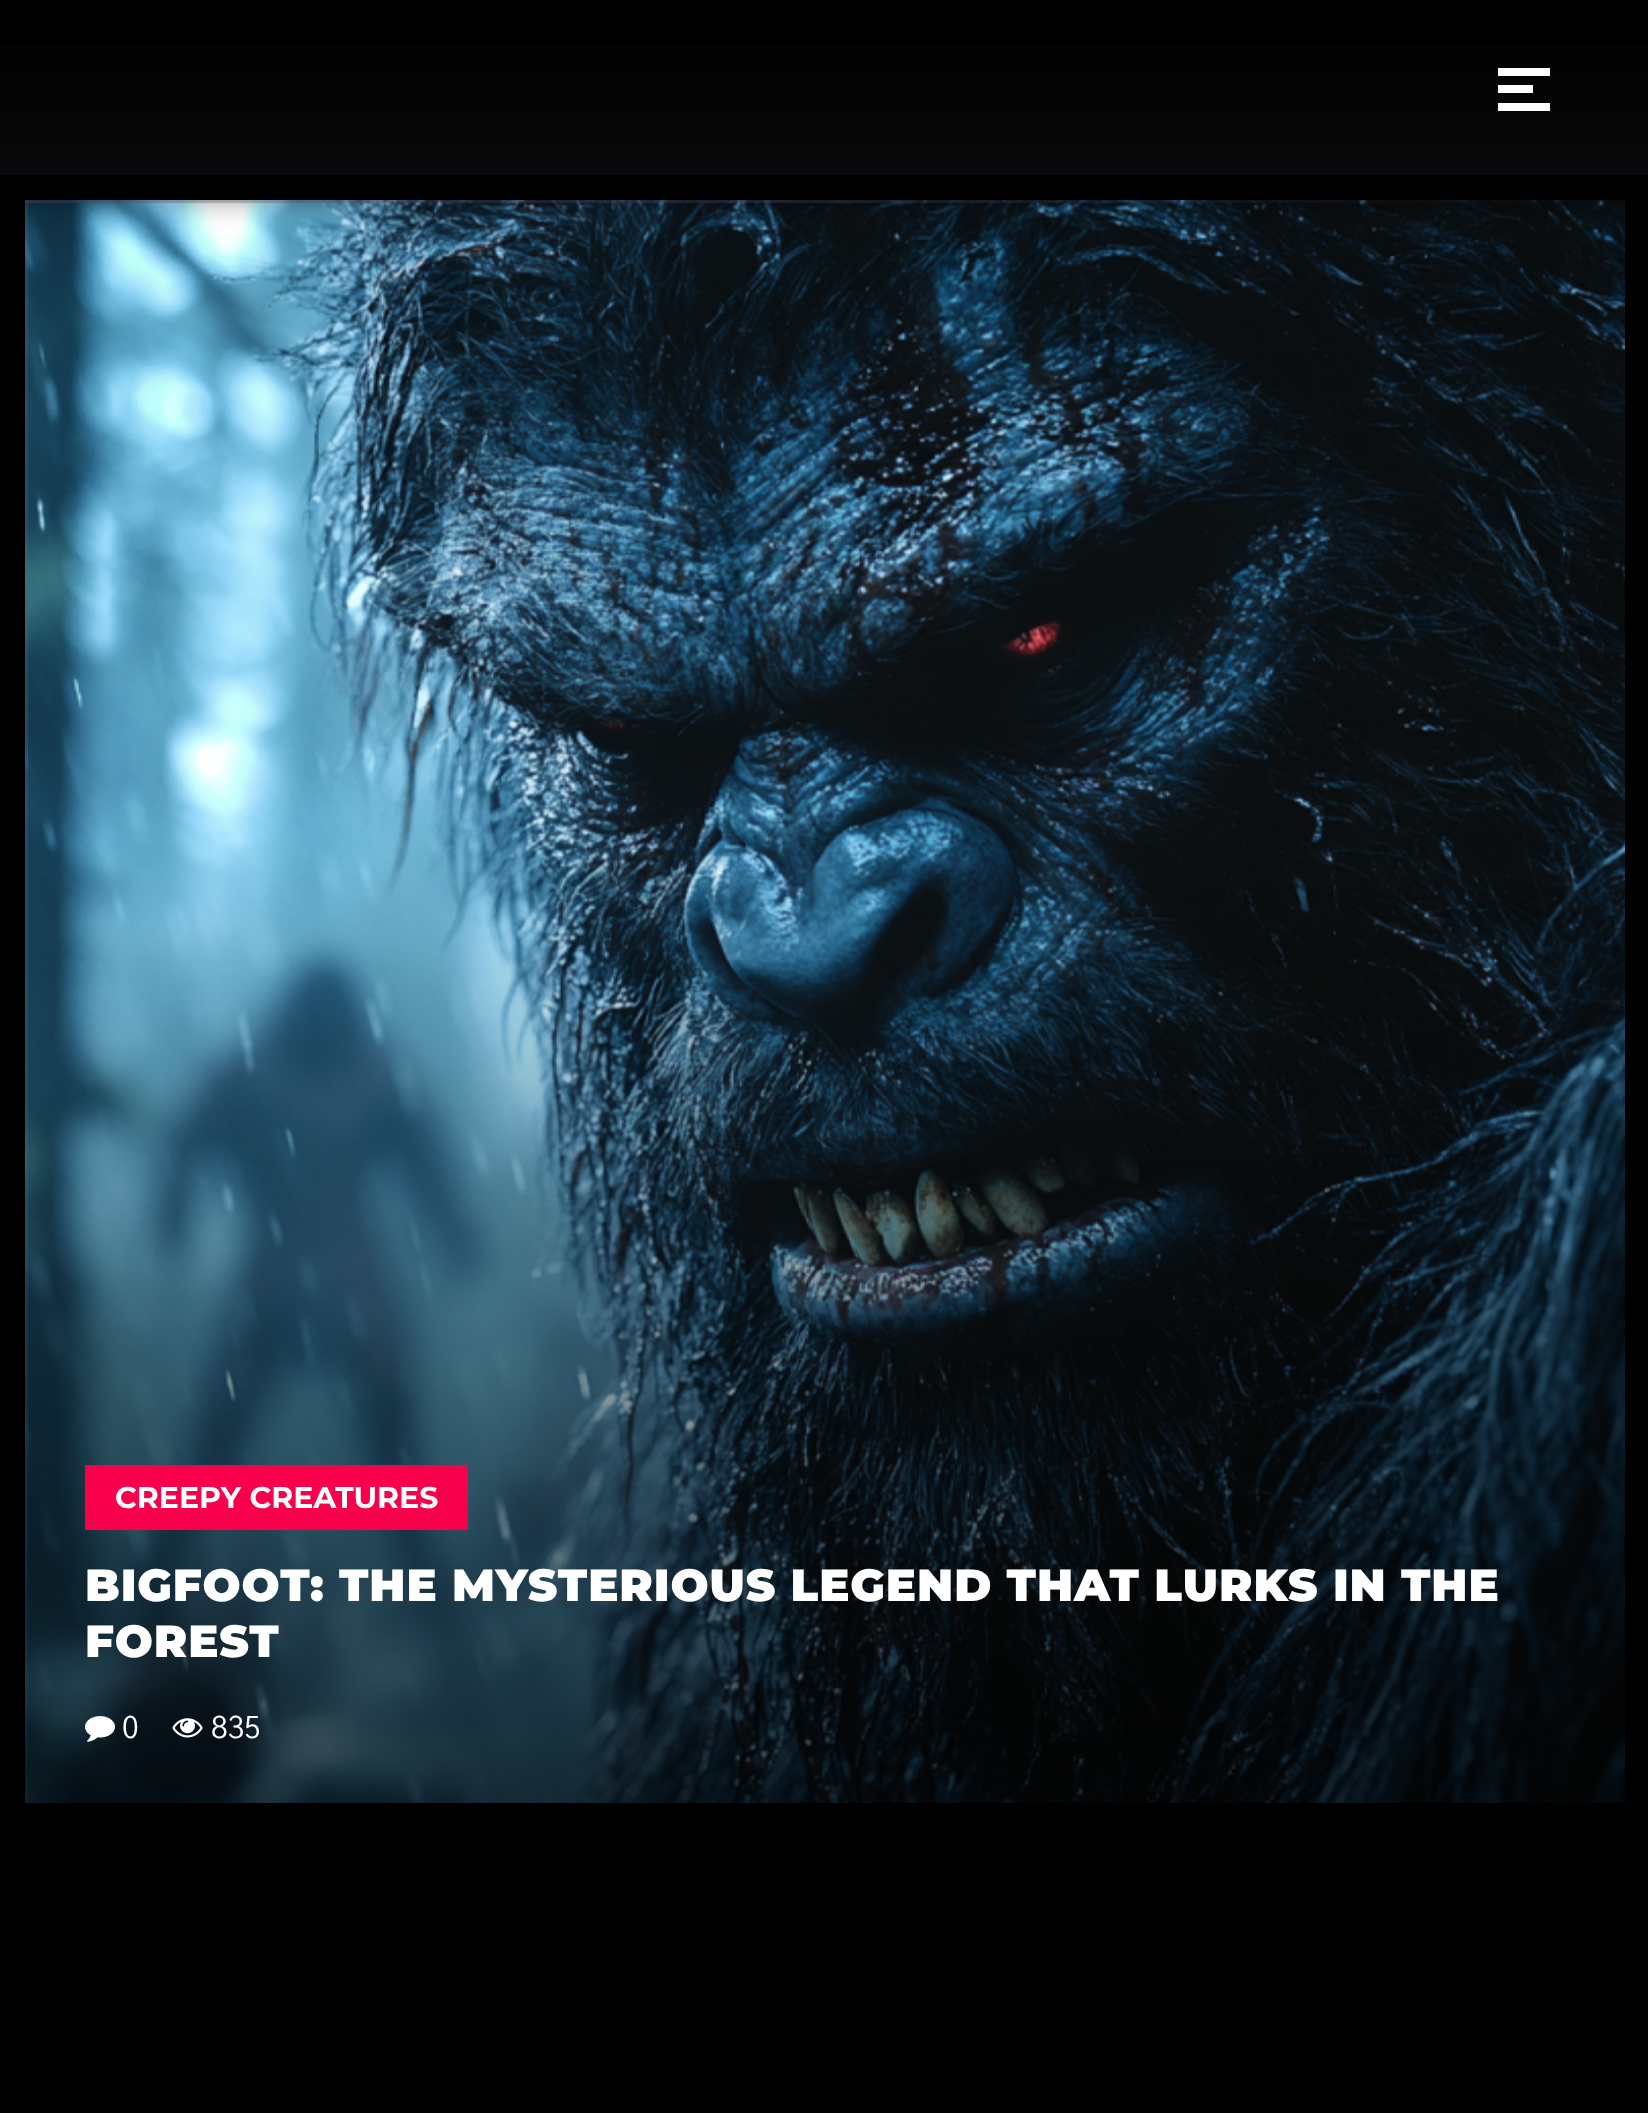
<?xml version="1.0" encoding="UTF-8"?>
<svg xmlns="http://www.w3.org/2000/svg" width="1648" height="2113">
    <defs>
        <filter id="blur1" x="-50%" y="-200%" width="200%" height="500%"><feGaussianBlur stdDeviation="15"/></filter>
        <linearGradient id="g1" gradientUnits="userSpaceOnUse" x1="825" y1="0" x2="825" y2="175"><stop offset="0" stop-color="#000000"/><stop offset="1" stop-color="#09080A"/></linearGradient>
    </defs>
    <rect width="100%" height="100%" fill="#000000"/>
    <image x="25" y="200" width="1600" height="1603" href="img_01.png"/>
    <rect x="0" y="23" width="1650" height="175" fill="#000000" fill-opacity="0.49" filter="url(#blur1)"/>
    <rect x="0" y="44" width="1648" height="131" fill="url(#g1)"/>
    <rect x="1498" y="68" width="52" height="8" fill="#FFFFFF"/>
    <rect x="1498" y="85" width="35" height="8" fill="#FFFFFF"/>
    <rect x="1498" y="103" width="52" height="8" fill="#FFFFFF"/>
    <rect x="85" y="1465" width="383" height="65" fill="#F8014C"/>
    <text x="115" y="1508" font-family="Montserrat" font-size="30" font-weight="700" fill="#FFFFFF">CREEPY CREATURES</text>
    <text font-family="Montserrat" font-size="45" font-weight="900" letter-spacing="0.9" fill="#FFFFFF">
        <tspan x="85" y="1601">BIGFOOT: THE MYSTERIOUS LEGEND THAT LURKS IN THE</tspan>
        <tspan x="85" y="1657">FOREST</tspan>
    </text>
    <image x="85" y="1716" width="30" height="26" href="img_02.png"/>
    <text x="122" y="1738" font-family="'Gothic A1'" font-size="30" fill="#FFFFFF">0</text>
    <image x="172" y="1718" width="31" height="20" href="img_03.png"/>
    <text x="211" y="1738" font-family="'Gothic A1'" font-size="30" fill="#FFFFFF">835</text>
</svg>
